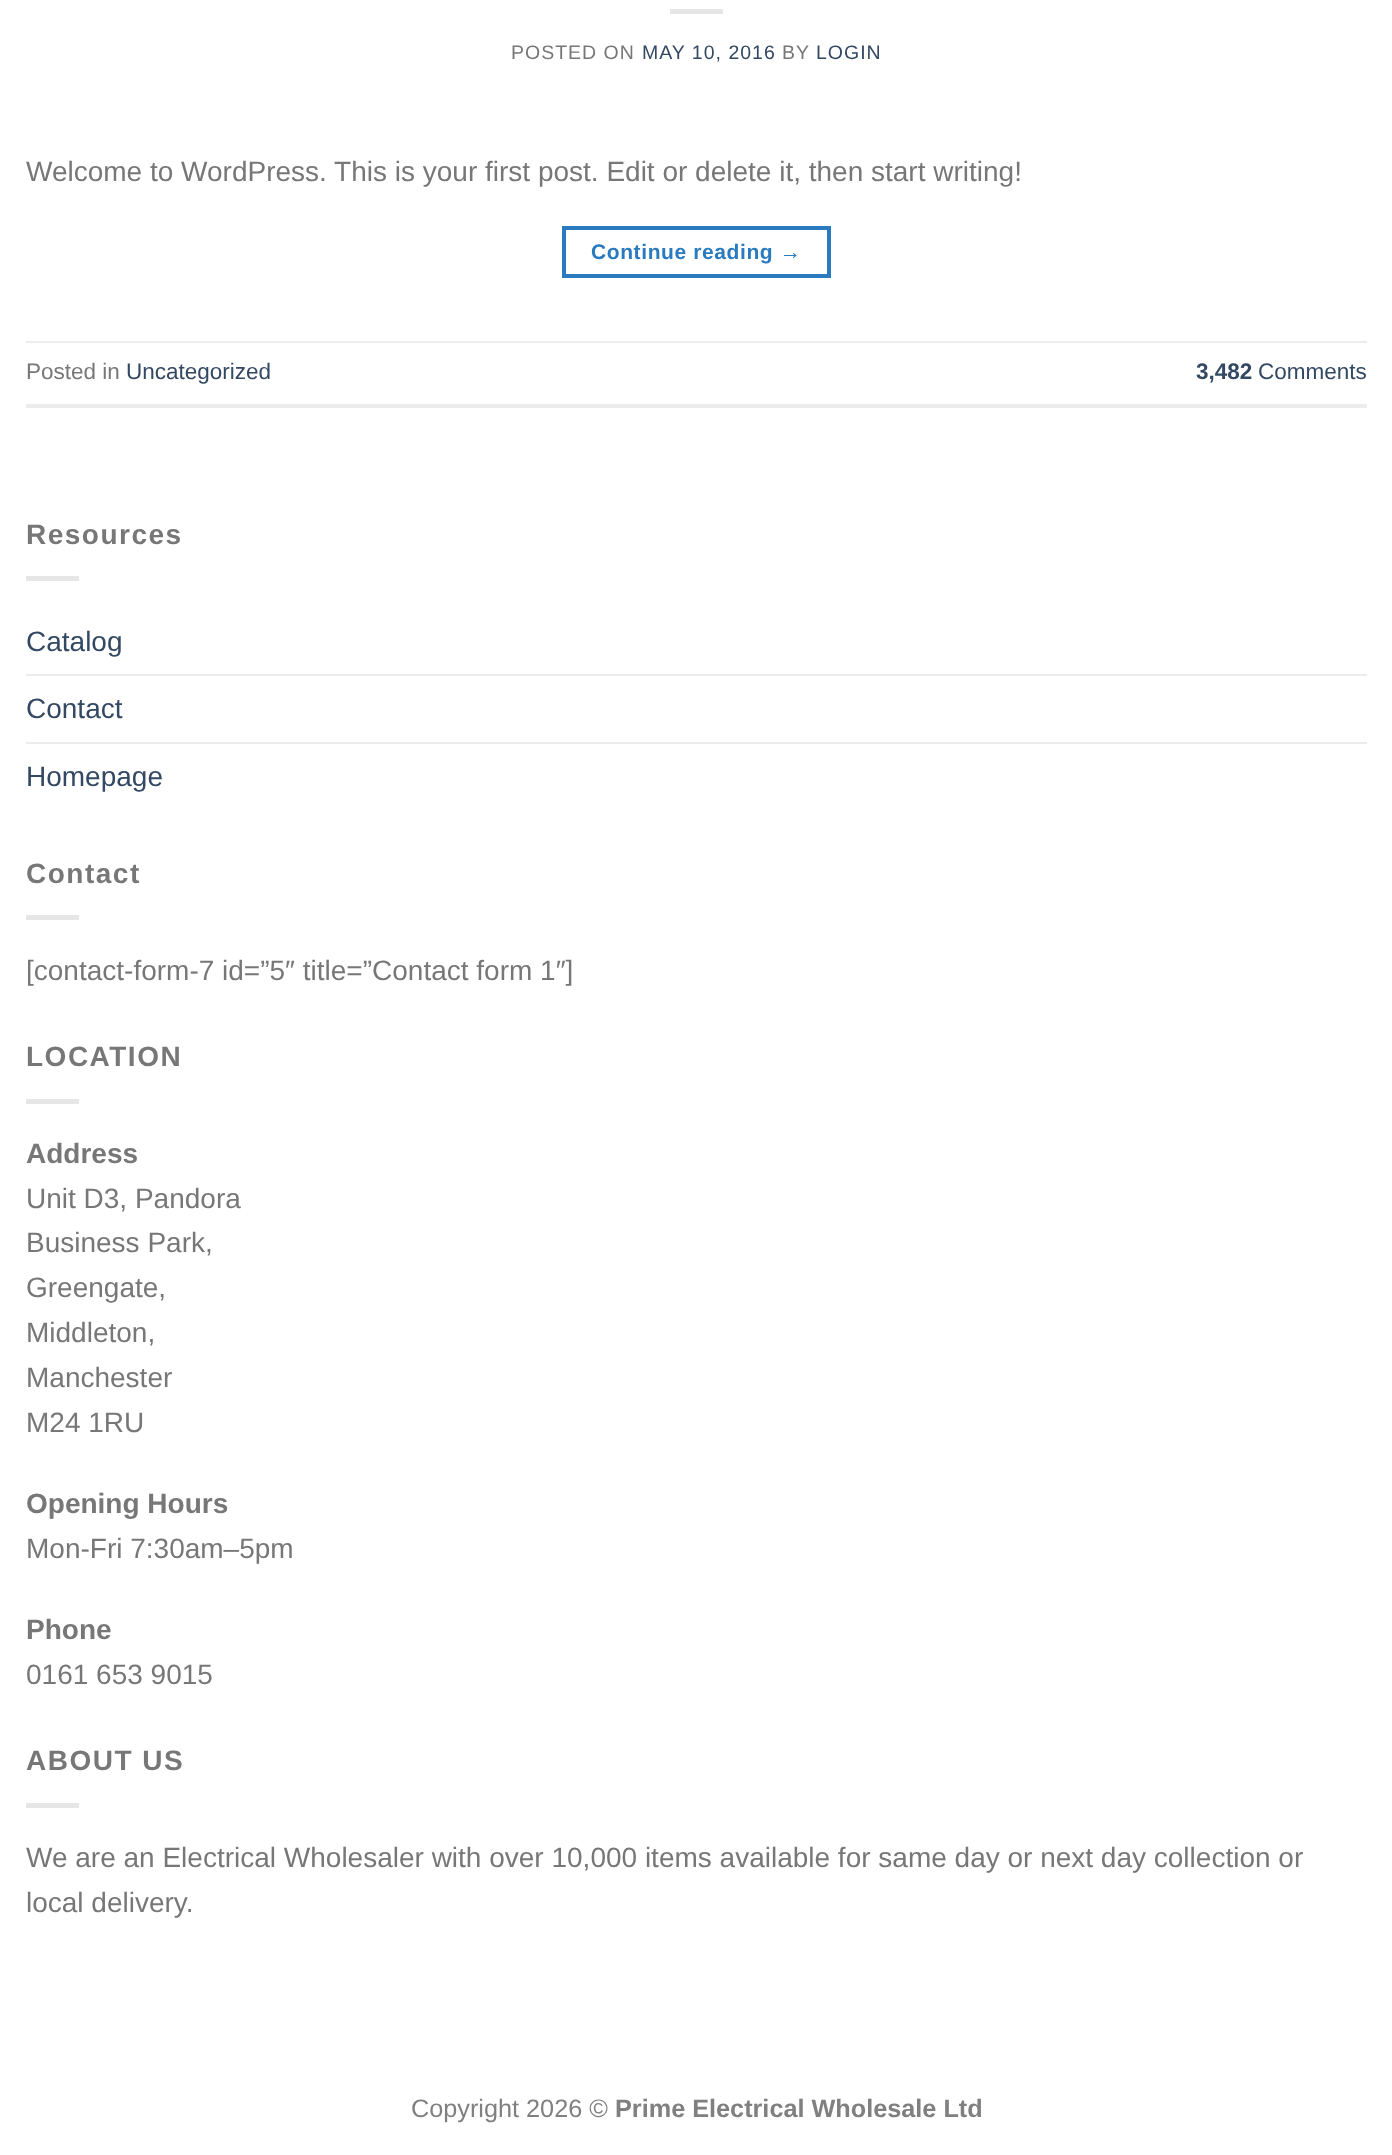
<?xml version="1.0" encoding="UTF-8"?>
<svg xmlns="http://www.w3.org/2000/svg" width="1392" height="2155">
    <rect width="100%" height="100%" fill="#FFFFFF"/>
    <rect x="670" y="9" width="53" height="5" fill="#E6E6E6"/>
    <text x="511" y="59" font-family="Liberation Sans" font-size="19.5" letter-spacing="1" fill="#777777">POSTED ON</text>
    <text x="642" y="59" font-family="Liberation Sans" font-size="19.5" letter-spacing="1" fill="#334862">MAY 10, 2016</text>
    <text x="782" y="59" font-family="Liberation Sans" font-size="19.5" letter-spacing="1" fill="#777777">BY</text>
    <text x="816" y="59" font-family="Liberation Sans" font-size="19.5" letter-spacing="1" fill="#334862">LOGIN</text>
    <text x="26" y="181" font-family="Liberation Sans" font-size="28" fill="#777777">Welcome to WordPress. This is your first post. Edit or delete it, then start writing!</text>
    <rect x="564" y="228" width="265" height="48" fill="none" stroke="#2A7AC0" stroke-width="4"/>
    <text x="591" y="259" font-family="Liberation Sans" font-size="21" font-weight="700" letter-spacing="0.6" fill="#2A7AC0">Continue reading →</text>
    <rect x="26" y="341" width="1341" height="2" fill="#ECECEC"/>
    <rect x="26" y="404" width="1341" height="4" fill="#ECECEC"/>
    <text x="26" y="379" font-family="Liberation Sans" font-size="22.5" fill="#777777">Posted in</text>
    <text x="126" y="379" font-family="Liberation Sans" font-size="22.5" fill="#334862">Uncategorized</text>
    <text x="1196" y="379" font-family="Liberation Sans" font-size="22.5" font-weight="700" fill="#334862">3,482</text>
    <text x="1258" y="379" font-family="Liberation Sans" font-size="22.5" fill="#334862">Comments</text>
    <text x="26" y="544" font-family="Liberation Sans" font-size="28" font-weight="700" letter-spacing="1.5" fill="#777777">Resources</text>
    <rect x="26" y="576" width="53" height="5" fill="#E6E6E6"/>
    <text x="26" y="651" font-family="Liberation Sans" font-size="28" fill="#334862">Catalog</text>
    <rect x="26" y="674" width="1341" height="2" fill="#ECECEC"/>
    <text x="26" y="718" font-family="Liberation Sans" font-size="28" fill="#334862">Contact</text>
    <rect x="26" y="742" width="1341" height="2" fill="#ECECEC"/>
    <text x="26" y="786" font-family="Liberation Sans" font-size="28" fill="#334862">Homepage</text>
    <text x="26" y="883" font-family="Liberation Sans" font-size="28" font-weight="700" letter-spacing="1.5" fill="#777777">Contact</text>
    <rect x="26" y="915" width="53" height="5" fill="#E6E6E6"/>
    <text x="26" y="980" font-family="Liberation Sans" font-size="28" fill="#777777">[contact-form-7 id=”5″ title=”Contact form 1″]</text>
    <text x="26" y="1066" font-family="Liberation Sans" font-size="28" font-weight="700" letter-spacing="1.5" fill="#777777">LOCATION</text>
    <rect x="26" y="1099" width="53" height="5" fill="#E6E6E6"/>
    <text x="26" y="1163" font-family="Liberation Sans" font-size="28" font-weight="700" fill="#777777">Address</text>
    <text font-family="Liberation Sans" font-size="28" fill="#777777">
        <tspan x="26" y="1208">Unit D3, Pandora</tspan>
        <tspan x="26" y="1252">Business Park,</tspan>
        <tspan x="26" y="1297">Greengate,</tspan>
        <tspan x="26" y="1342">Middleton,</tspan>
        <tspan x="26" y="1387">Manchester</tspan>
        <tspan x="26" y="1432">M24 1RU</tspan>
    </text>
    <text x="26" y="1513" font-family="Liberation Sans" font-size="28" font-weight="700" fill="#777777">Opening Hours</text>
    <text x="26" y="1558" font-family="Liberation Sans" font-size="28" fill="#777777">Mon-Fri 7:30am–5pm</text>
    <text x="26" y="1639" font-family="Liberation Sans" font-size="28" font-weight="700" fill="#777777">Phone</text>
    <text x="26" y="1684" font-family="Liberation Sans" font-size="28" fill="#777777">0161 653 9015</text>
    <text x="26" y="1770" font-family="Liberation Sans" font-size="28" font-weight="700" letter-spacing="1.5" fill="#777777">ABOUT US</text>
    <rect x="26" y="1803" width="53" height="5" fill="#E6E6E6"/>
    <text font-family="Liberation Sans" font-size="28" fill="#777777">
        <tspan x="26" y="1867">We are an Electrical Wholesaler with over 10,000 items available for same day or next day collection or</tspan>
        <tspan x="26" y="1912">local delivery.</tspan>
    </text>
    <text x="411" y="2117" font-family="Liberation Sans" font-size="25.25" fill="#808080">Copyright 2026 ©</text>
    <text x="615" y="2117" font-family="Liberation Sans" font-size="25.25" font-weight="700" fill="#808080">Prime Electrical Wholesale Ltd</text>
</svg>
